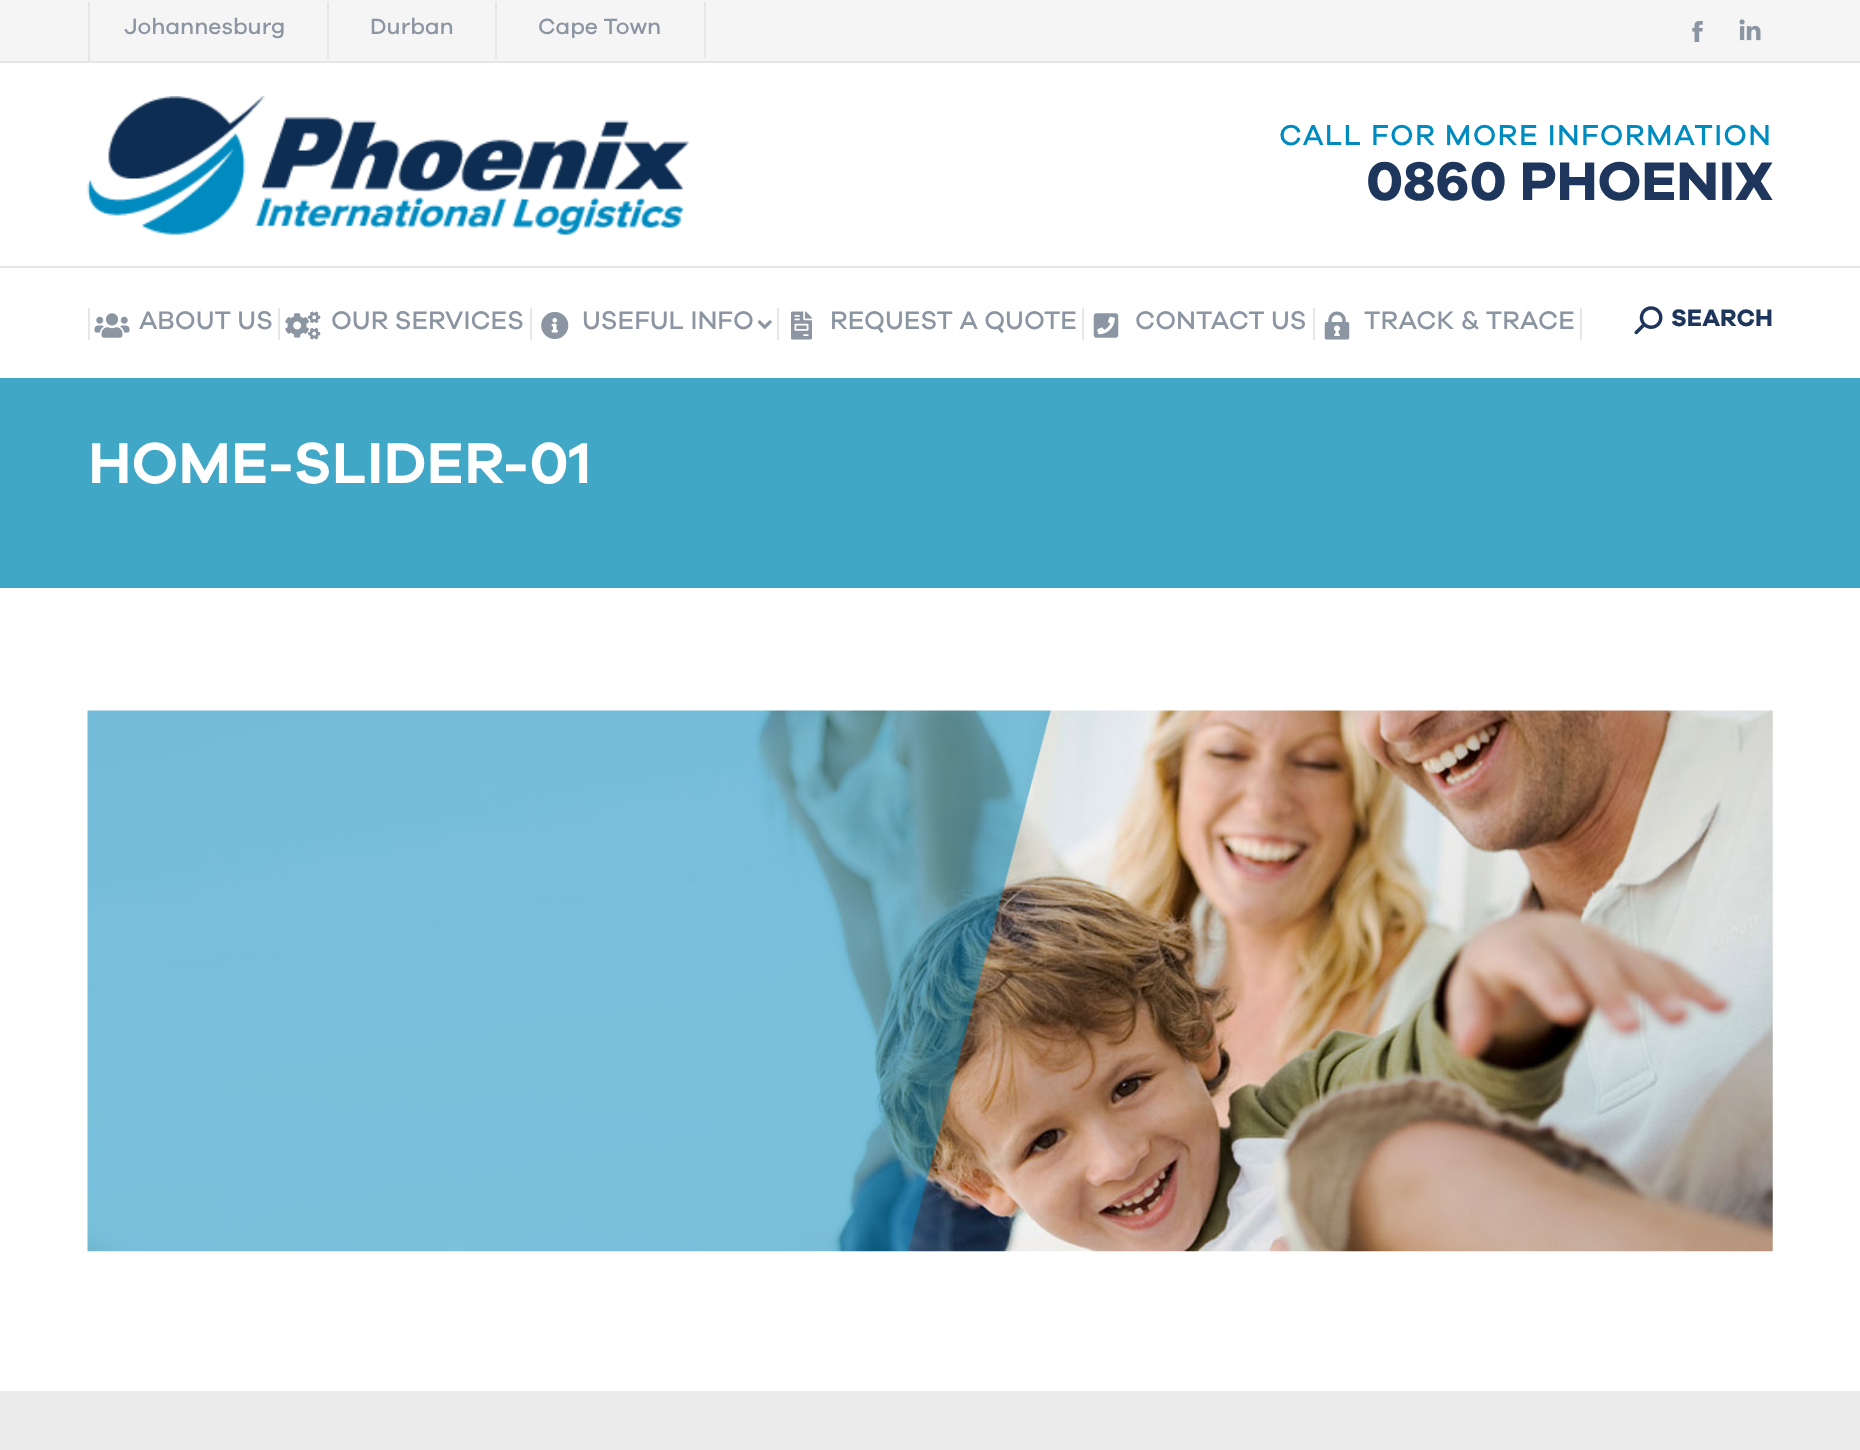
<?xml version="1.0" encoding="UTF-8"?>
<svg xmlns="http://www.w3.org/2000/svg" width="1860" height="1450">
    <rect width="100%" height="100%" fill="#FFFFFF"/>
    <rect x="0" y="0" width="1860" height="61" fill="#F5F5F5"/>
    <rect x="88" y="2" width="2" height="61" fill="#E6E6E6"/>
    <rect x="327" y="2" width="2" height="56" fill="#E6E6E6"/>
    <text x="124" y="34" font-family="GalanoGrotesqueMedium" font-size="22.75" font-weight="500" fill="#8C95A2">Johannesburg</text>
    <rect x="495" y="2" width="2" height="56" fill="#E6E6E6"/>
    <text x="370" y="34" font-family="GalanoGrotesqueMedium" font-size="22.75" font-weight="500" fill="#8C95A2">Durban</text>
    <rect x="704" y="2" width="2" height="56" fill="#E6E6E6"/>
    <text x="538" y="34" font-family="GalanoGrotesqueMedium" font-size="22.75" font-weight="500" fill="#8C95A2">Cape Town</text>
    <image x="1692" y="21" width="11" height="21" href="img_01.png"/>
    <image x="1739" y="19" width="22" height="22" href="img_02.png"/>
    <rect x="0" y="61" width="1860" height="2" fill="#E6E6E6"/>
    <image x="87" y="96" width="603" height="139" href="img_03.png"/>
    <text x="1279" y="145" font-family="GalanoGrotesqueMedium" font-size="29.75" font-weight="500" letter-spacing="1.3" fill="#008BC0">CALL FOR MORE INFORMATION</text>
    <text x="1366" y="200" font-family="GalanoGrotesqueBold" font-size="56" font-weight="700" fill="#1F365C">0860 PHOENIX</text>
    <rect x="0" y="266" width="1860" height="2" fill="#E7E7E7"/>
    <rect x="88" y="308" width="2" height="32" fill="#E7E7E7"/>
    <image x="94" y="313" width="36" height="25" href="img_04.png"/>
    <text x="139" y="329" font-family="GalanoGrotesqueMedium" font-size="26.25" font-weight="500" fill="#8C95A2">ABOUT US</text>
    <rect x="278" y="308" width="2" height="32" fill="#E7E7E7"/>
    <image x="285" y="311" width="36" height="29" href="img_05.png"/>
    <text x="331" y="329" font-family="GalanoGrotesqueMedium" font-size="26.25" font-weight="500" fill="#8C95A2">OUR SERVICES</text>
    <rect x="530" y="308" width="2" height="32" fill="#E7E7E7"/>
    <image x="541" y="311" width="28" height="29" href="img_06.png"/>
    <text x="582" y="329" font-family="GalanoGrotesqueMedium" font-size="26.25" font-weight="500" fill="#8C95A2">USEFUL INFO</text>
    <image x="757" y="320" width="15" height="9" href="img_07.png"/>
    <rect x="777" y="308" width="2" height="32" fill="#E7E7E7"/>
    <image x="791" y="311" width="21" height="29" href="img_08.png"/>
    <text x="830" y="329" font-family="GalanoGrotesqueMedium" font-size="26.25" font-weight="500" fill="#8C95A2">REQUEST A QUOTE</text>
    <rect x="1082" y="308" width="2" height="32" fill="#E7E7E7"/>
    <image x="1093" y="313" width="26" height="25" href="img_09.png"/>
    <text x="1135" y="329" font-family="GalanoGrotesqueMedium" font-size="26.25" font-weight="500" fill="#8C95A2">CONTACT US</text>
    <rect x="1313" y="308" width="2" height="32" fill="#E7E7E7"/>
    <image x="1324" y="311" width="26" height="29" href="img_10.png"/>
    <text x="1364" y="329" font-family="GalanoGrotesqueMedium" font-size="26.25" font-weight="500" fill="#8C95A2">TRACK &amp; TRACE</text>
    <rect x="1580" y="308" width="2" height="32" fill="#E7E7E7"/>
    <image x="1634" y="306" width="29" height="29" href="img_11.png"/>
    <text x="1671" y="326" font-family="GalanoGrotesqueBold" font-size="24.5" font-weight="700" fill="#1F365C">SEARCH</text>
    <rect x="0" y="378" width="1860" height="210" fill="#40A7C6"/>
    <text x="88" y="483" font-family="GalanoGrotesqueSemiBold" font-size="59.5" font-weight="600" fill="#FFFFFF">HOME-SLIDER-01</text>
    <image x="87" y="710" width="1686" height="542" href="img_12.png"/>
    <rect x="0" y="1391" width="1860" height="59" fill="#ECECEC"/>
</svg>
